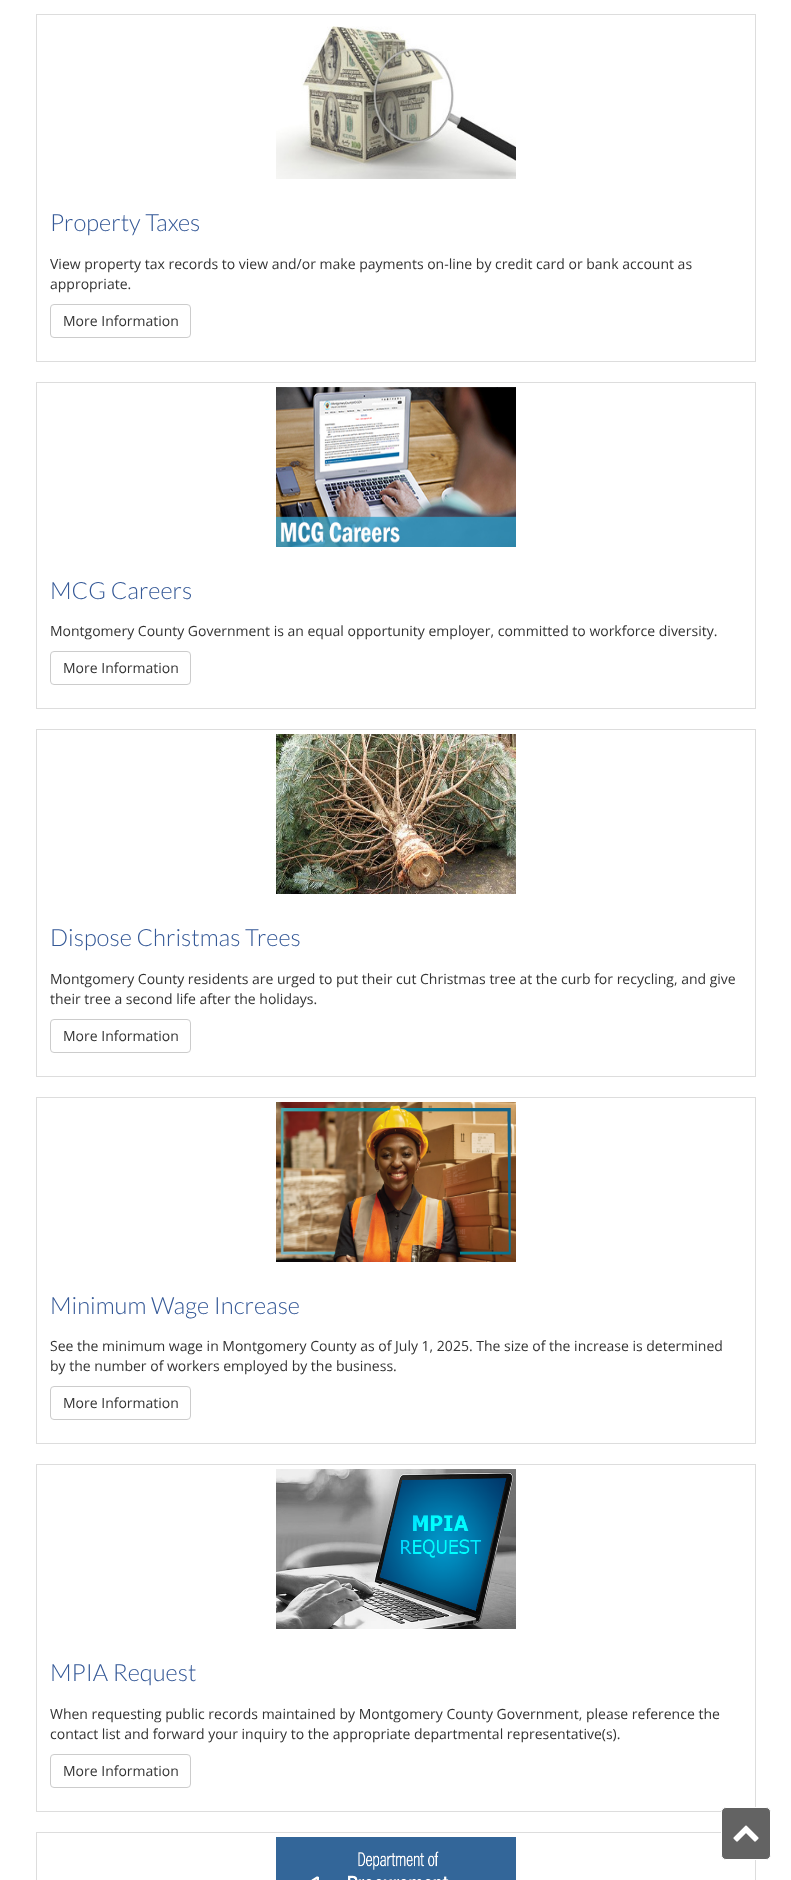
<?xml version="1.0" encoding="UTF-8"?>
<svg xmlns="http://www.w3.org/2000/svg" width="791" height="1880">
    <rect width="100%" height="100%" fill="#FFFFFF"/>
    <rect x="36.5" y="14.5" width="719" height="347" fill="none" stroke="#DDDDDD"/>
    <image x="276" y="26" width="240" height="153" href="img_01.png"/>
    <text x="50" y="231" font-family="Lato" font-size="23.75" font-weight="300" fill="#355997">Property Taxes</text>
    <text font-family="Open Sans" font-size="14" fill="#333333">
        <tspan x="50" y="269">View property tax records to view and/or make payments on-line by credit card or bank account as</tspan>
        <tspan x="50" y="289">appropriate.</tspan>
    </text>
    <rect x="50.5" y="304.5" width="140" height="33" rx="3.5" fill="none" stroke="#CCCCCC"/>
    <text x="63" y="326" font-family="Open Sans" font-size="14" fill="#333333">More Information</text>
    <rect x="36.5" y="382.5" width="719" height="326" fill="none" stroke="#DDDDDD"/>
    <image x="276" y="387" width="240" height="160" href="img_02.png"/>
    <text x="50" y="599" font-family="Lato" font-size="23.75" font-weight="300" fill="#355997">MCG Careers</text>
    <text x="50" y="636" font-family="Open Sans" font-size="14" fill="#333333">Montgomery County Government is an equal opportunity employer, committed to workforce diversity.</text>
    <rect x="50.5" y="651.5" width="140" height="33" rx="3.5" fill="none" stroke="#CCCCCC"/>
    <text x="63" y="673" font-family="Open Sans" font-size="14" fill="#333333">More Information</text>
    <rect x="36.5" y="729.5" width="719" height="347" fill="none" stroke="#DDDDDD"/>
    <image x="276" y="734" width="240" height="160" href="img_03.png"/>
    <text x="50" y="946" font-family="Lato" font-size="23.75" font-weight="300" fill="#355997">Dispose Christmas Trees</text>
    <text font-family="Open Sans" font-size="14" fill="#333333">
        <tspan x="50" y="984">Montgomery County residents are urged to put their cut Christmas tree at the curb for recycling, and give</tspan>
        <tspan x="50" y="1004">their tree a second life after the holidays.</tspan>
    </text>
    <rect x="50.5" y="1019.5" width="140" height="33" rx="3.5" fill="none" stroke="#CCCCCC"/>
    <text x="63" y="1041" font-family="Open Sans" font-size="14" fill="#333333">More Information</text>
    <rect x="36.5" y="1097.5" width="719" height="346" fill="none" stroke="#DDDDDD"/>
    <image x="276" y="1102" width="240" height="160" href="img_04.png"/>
    <text x="50" y="1314" font-family="Lato" font-size="23.75" font-weight="300" fill="#355997">Minimum Wage Increase</text>
    <text font-family="Open Sans" font-size="14" fill="#333333">
        <tspan x="50" y="1351">See the minimum wage in Montgomery County as of July 1, 2025. The size of the increase is determined</tspan>
        <tspan x="50" y="1371">by the number of workers employed by the business.</tspan>
    </text>
    <rect x="50.5" y="1386.5" width="140" height="33" rx="3.5" fill="none" stroke="#CCCCCC"/>
    <text x="63" y="1408" font-family="Open Sans" font-size="14" fill="#333333">More Information</text>
    <rect x="36.5" y="1464.5" width="719" height="347" fill="none" stroke="#DDDDDD"/>
    <image x="276" y="1469" width="240" height="160" href="img_05.png"/>
    <text x="50" y="1681" font-family="Lato" font-size="23.75" font-weight="300" fill="#355997">MPIA Request</text>
    <text font-family="Open Sans" font-size="14" fill="#333333">
        <tspan x="50" y="1719">When requesting public records maintained by Montgomery County Government, please reference the</tspan>
        <tspan x="50" y="1739">contact list and forward your inquiry to the appropriate departmental representative(s).</tspan>
    </text>
    <rect x="50.5" y="1754.5" width="140" height="33" rx="3.5" fill="none" stroke="#CCCCCC"/>
    <text x="63" y="1776" font-family="Open Sans" font-size="14" fill="#333333">More Information</text>
    <rect x="36.5" y="1832.5" width="719" height="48" fill="none" stroke="#DDDDDD"/>
    <image x="276" y="1837" width="240" height="43" href="img_06.png"/>
    <rect x="721.5" y="1807.5" width="49" height="52" rx="4.5" fill="#636363" stroke="#FFFFFF"/>
    <image x="733" y="1825" width="26" height="17" href="img_07.png"/>
</svg>
